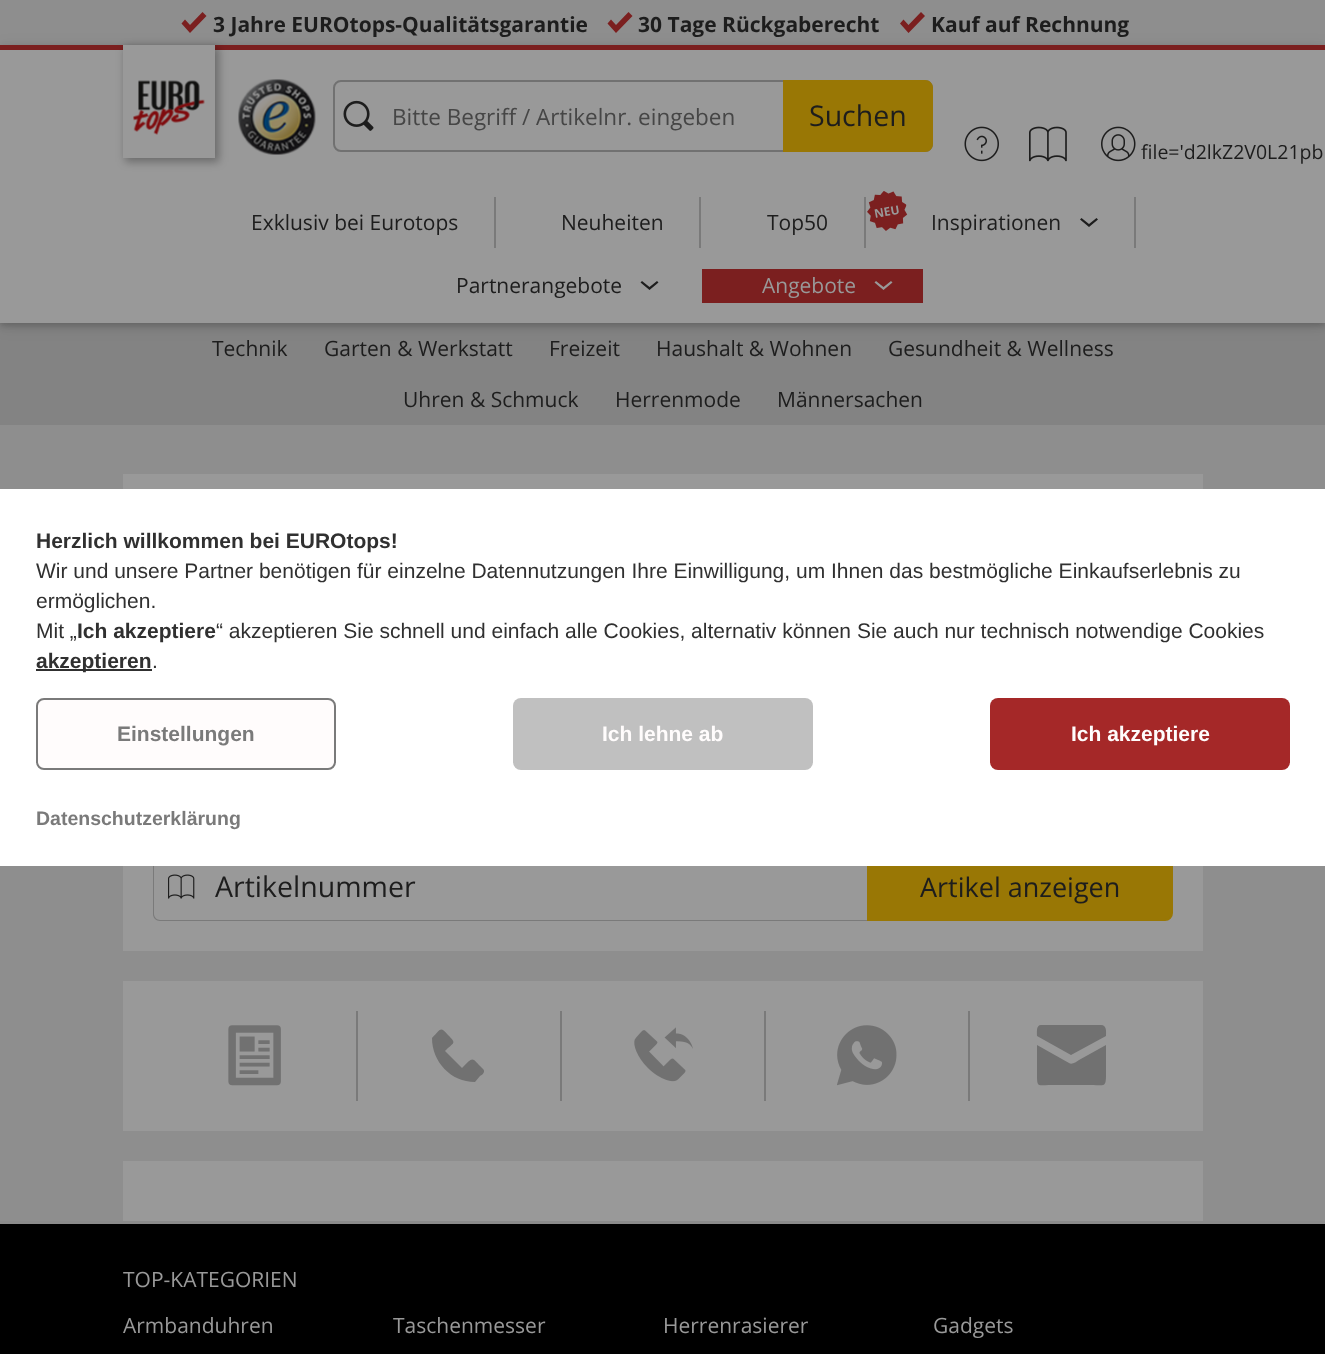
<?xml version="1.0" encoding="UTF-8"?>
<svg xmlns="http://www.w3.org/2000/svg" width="1325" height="1354">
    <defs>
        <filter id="blur1" x="-50%" y="-200%" width="200%" height="500%"><feGaussianBlur stdDeviation="7.5"/></filter>
        <filter id="blur2" x="-50%" y="-200%" width="200%" height="500%"><feGaussianBlur stdDeviation="3"/></filter>
        <filter id="blur3" x="-50%" y="-200%" width="200%" height="500%"><feGaussianBlur stdDeviation="4"/></filter>
    </defs>
    <rect width="100%" height="100%" fill="#8E8E8E"/>
    <text x="213" y="32" font-family="Open Sans" font-size="21" font-weight="700" fill="#1D1D1D">3 Jahre EUROtops-Qualitätsgarantie</text>
    <path d="M 190 25 L 185 19.5 L 181.5 23.5 L 190 33 L 206.5 16 L 202.5 12 Z" fill="#7B1F1F"/>
    <text x="638" y="32" font-family="Open Sans" font-size="21" font-weight="700" fill="#1D1D1D">30 Tage Rückgaberecht</text>
    <path d="M 616 25 L 611 19.5 L 607.5 23.5 L 616 33 L 632.5 16 L 628.5 12 Z" fill="#7B1F1F"/>
    <text x="931" y="32" font-family="Open Sans" font-size="21" font-weight="700" fill="#1D1D1D">Kauf auf Rechnung</text>
    <path d="M 908.5 25 L 903.5 19.5 L 900 23.5 L 908.5 33 L 925 16 L 921 12 Z" fill="#7B1F1F"/>
    <rect x="0" y="323" width="1325" height="102" fill="#838383"/>
    <rect x="0" y="48" width="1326" height="278" fill="#000000" fill-opacity="0.12" filter="url(#blur1)"/>
    <rect x="0" y="48" width="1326" height="278" fill="#000000" fill-opacity="0.16" filter="url(#blur2)"/>
    <rect x="0" y="50" width="1325" height="273" fill="#999999"/>
    <rect x="0" y="45" width="1325" height="5" fill="#7B1F1F"/>
    <rect x="125" y="47" width="94" height="115" fill="#000000" fill-opacity="0.3" filter="url(#blur3)"/>
    <rect x="123" y="45" width="92" height="113" fill="#999999"/>
    <image x="133" y="80" width="72" height="55" href="img_01.png"/>
    <image x="238" y="79" width="78" height="76" href="img_02.png"/>
    <rect x="334" y="81" width="598" height="70" rx="7" fill="none" stroke="#717171" stroke-width="2"/>
    <image x="343" y="100" width="31" height="31" href="img_03.png"/>
    <text x="392" y="125" font-family="Open Sans" font-size="22.5" fill="#464646">Bitte Begriff / Artikelnr. eingeben</text>
    <path d="M 783 80 H 925 C 929.5 80 933 83.5 933 88 V 144 C 933 148.5 929.5 152 925 152 H 783 Z" fill="#997705"/>
    <text x="809" y="126" font-family="Open Sans" font-size="28.5" fill="#1D1D1D">Suchen</text>
    <image x="964" y="126" width="35" height="36" href="img_04.png"/>
    <image x="1029" y="126" width="38" height="36" href="img_05.png"/>
    <image x="1101" y="126" width="35" height="36" href="img_06.png"/>
    <text x="1141" y="159" font-family="Open Sans" font-size="19.5" fill="#1D1D1D">file='d2lkZ2V0L21pb</text>
    <text x="251" y="230" font-family="Open Sans" font-size="21" fill="#1D1D1D">Exklusiv bei Eurotops</text>
    <rect x="494" y="197" width="2" height="51" fill="#7A7A7A"/>
    <text x="561" y="230" font-family="Open Sans" font-size="21" fill="#1D1D1D">Neuheiten</text>
    <rect x="699" y="197" width="2" height="51" fill="#7A7A7A"/>
    <text x="767" y="230" font-family="Open Sans" font-size="21" fill="#1D1D1D">Top50</text>
    <rect x="864" y="197" width="2" height="51" fill="#7A7A7A"/>
    <image x="867" y="191" width="41" height="40" href="img_07.png"/>
    <text x="875" y="218" transform="rotate(-10 875 218)" font-family="Open Sans" font-size="12" font-weight="700" fill="#999999">NEU</text>
    <rect x="1134" y="197" width="2" height="51" fill="#7A7A7A"/>
    <text x="931" y="230" font-family="Open Sans" font-size="21" fill="#1D1D1D">Inspirationen</text>
    <path d="M 1089 227 L 1080 219.5 L 1081.5 218 L 1089 224 L 1096.5 218 L 1098 219.5 Z" fill="#1D1D1D"/>
    <text x="456" y="293" font-family="Open Sans" font-size="21" fill="#1D1D1D">Partnerangebote</text>
    <path d="M 649.5 290 L 640.5 282.5 L 642 281 L 649.5 287 L 657 281 L 658.5 282.5 Z" fill="#1D1D1D"/>
    <rect x="702" y="269" width="221" height="34" fill="#7B1F1F"/>
    <text x="762" y="293" font-family="Open Sans" font-size="21" fill="#999999">Angebote</text>
    <path d="M 883.5 290 L 874.5 282.5 L 876 281 L 883.5 287 L 891 281 L 892.5 282.5 Z" fill="#999999"/>
    <text x="212" y="356" font-family="Open Sans" font-size="21" fill="#1D1D1D">Technik</text>
    <text x="324" y="356" font-family="Open Sans" font-size="21" fill="#1D1D1D">Garten &amp; Werkstatt</text>
    <text x="549" y="356" font-family="Open Sans" font-size="21" fill="#1D1D1D">Freizeit</text>
    <text x="656" y="356" font-family="Open Sans" font-size="21" fill="#1D1D1D">Haushalt &amp; Wohnen</text>
    <text x="888" y="356" font-family="Open Sans" font-size="21" fill="#1D1D1D">Gesundheit &amp; Wellness</text>
    <text x="403" y="407" font-family="Open Sans" font-size="21" fill="#1D1D1D">Uhren &amp; Schmuck</text>
    <text x="615" y="407" font-family="Open Sans" font-size="21" fill="#1D1D1D">Herrenmode</text>
    <text x="777" y="407" font-family="Open Sans" font-size="21" fill="#1D1D1D">Männersachen</text>
    <rect x="123" y="474" width="1080" height="477" fill="#999999"/>
    <path d="M 160 852 H 867 V 921 H 160 C 156 921 153 918 153 914 V 860 C 153 855 156 852 160 852 Z M 160 854 H 867 V 920 H 160 C 157 920 154 917 154 914 V 860 C 154 856 157 854 160 854 Z" fill="#7A7A7A" fill-rule="evenodd"/>
    <image x="168" y="874" width="27" height="25" href="img_08.png"/>
    <text x="215" y="897" font-family="Open Sans" font-size="28.5" fill="#1D1D1D">Artikelnummer</text>
    <path d="M 868 853 H 1165 C 1169 853 1172 856 1172 860 V 913 C 1172 917 1169 920 1165 920 H 868 Z" fill="#997705" stroke="#997705" stroke-width="2"/>
    <text x="920" y="897" font-family="Open Sans" font-size="27" fill="#1D1D1D">Artikel anzeigen</text>
    <rect x="123" y="981" width="1080" height="150" fill="#999999"/>
    <rect x="356" y="1011" width="2" height="90" fill="#7A7A7A"/>
    <image x="228" y="1025" width="53" height="61" href="img_09.png"/>
    <rect x="560" y="1011" width="2" height="90" fill="#7A7A7A"/>
    <path d="M 483 1069 C 471 1057 474 1056 462 1068 L 445 1051 C 454 1042 457 1044 448 1035 C 440 1026 441 1029 432 1038 C 432 1062 451 1082 475 1082 L 480 1076 C 482 1075 486 1072 483 1069 Z" fill="#717171"/>
    <rect x="764" y="1011" width="2" height="90" fill="#7A7A7A"/>
    <image x="634" y="1027" width="59" height="55" href="img_10.png"/>
    <rect x="968" y="1011" width="2" height="90" fill="#7A7A7A"/>
    <image x="837" y="1025" width="60" height="61" href="img_11.png"/>
    <path d="M 1101 1025 H 1041 C 1036 1025 1037 1032 1037 1036 L 1071 1055 L 1106 1036 C 1106 1032 1107 1025 1101 1025 Z M 1069 1063 L 1037 1045 V 1075 C 1037 1088 1038 1085 1051 1085 H 1091 C 1104 1085 1106 1088 1106 1075 V 1045 L 1079 1060 C 1076 1062 1072 1065 1069 1063 Z" fill="#717171"/>
    <rect x="123" y="1161" width="1080" height="60" fill="#999999"/>
    <rect x="0" y="1224" width="1325" height="130" fill="#000000"/>
    <rect x="0" y="1221" width="1325" height="3" fill="#8B8B8B"/>
    <text x="123" y="1287" font-family="Open Sans" font-size="21" fill="#999999">TOP-KATEGORIEN</text>
    <text x="123" y="1333" font-family="Open Sans" font-size="21" fill="#999999">Armbanduhren</text>
    <text x="393" y="1333" font-family="Open Sans" font-size="21" fill="#999999">Taschenmesser</text>
    <text x="663" y="1333" font-family="Open Sans" font-size="21" fill="#999999">Herrenrasierer</text>
    <text x="933" y="1333" font-family="Open Sans" font-size="21" fill="#999999">Gadgets</text>
    <rect x="0" y="489" width="1325" height="377" fill="#FFFFFF"/>
    <text x="36" y="548" font-family="Liberation Sans" font-size="21" font-weight="700" fill="#303030">Herzlich willkommen bei EUROtops!</text>
    <text font-family="Liberation Sans" font-size="21" fill="#303030">
        <tspan x="36" y="578">Wir und unsere Partner benötigen für einzelne Datennutzungen Ihre Einwilligung, um Ihnen das bestmögliche Einkaufserlebnis zu</tspan>
        <tspan x="36" y="608">ermöglichen.</tspan>
        <tspan x="36" y="638">Mit „</tspan>
    </text>
    <text x="77" y="638" font-family="Liberation Sans" font-size="21" font-weight="700" fill="#303030">Ich akzeptiere</text>
    <text x="216" y="638" font-family="Liberation Sans" font-size="21" fill="#303030">“ akzeptieren Sie schnell und einfach alle Cookies, alternativ können Sie auch nur technisch notwendige Cookies</text>
    <rect x="36" y="669" width="116" height="2" fill="#303030"/>
    <text x="36" y="668" font-family="Liberation Sans" font-size="21" font-weight="700" fill="#303030">akzeptieren</text>
    <text x="152" y="668" font-family="Liberation Sans" font-size="21" fill="#303030">.</text>
    <rect x="37" y="699" width="298" height="70" rx="7" fill="#FFFCFC" stroke="#7A7A7A" stroke-width="2"/>
    <text x="117" y="741" font-family="Liberation Sans" font-size="21" font-weight="700" fill="#7A7A7A">Einstellungen</text>
    <rect x="513" y="698" width="300" height="72" rx="8" fill="#C0C0C0"/>
    <text x="602" y="741" font-family="Liberation Sans" font-size="21" font-weight="700" fill="#FFFCFC">Ich lehne ab</text>
    <rect x="990" y="698" width="300" height="72" rx="8" fill="#A52828"/>
    <text x="1071" y="741" font-family="Liberation Sans" font-size="21" font-weight="700" fill="#FFFCFC">Ich akzeptiere</text>
    <text x="36" y="825" font-family="Liberation Sans" font-size="19.5" font-weight="700" fill="#7A7A7A">Datenschutzerklärung</text>
</svg>
